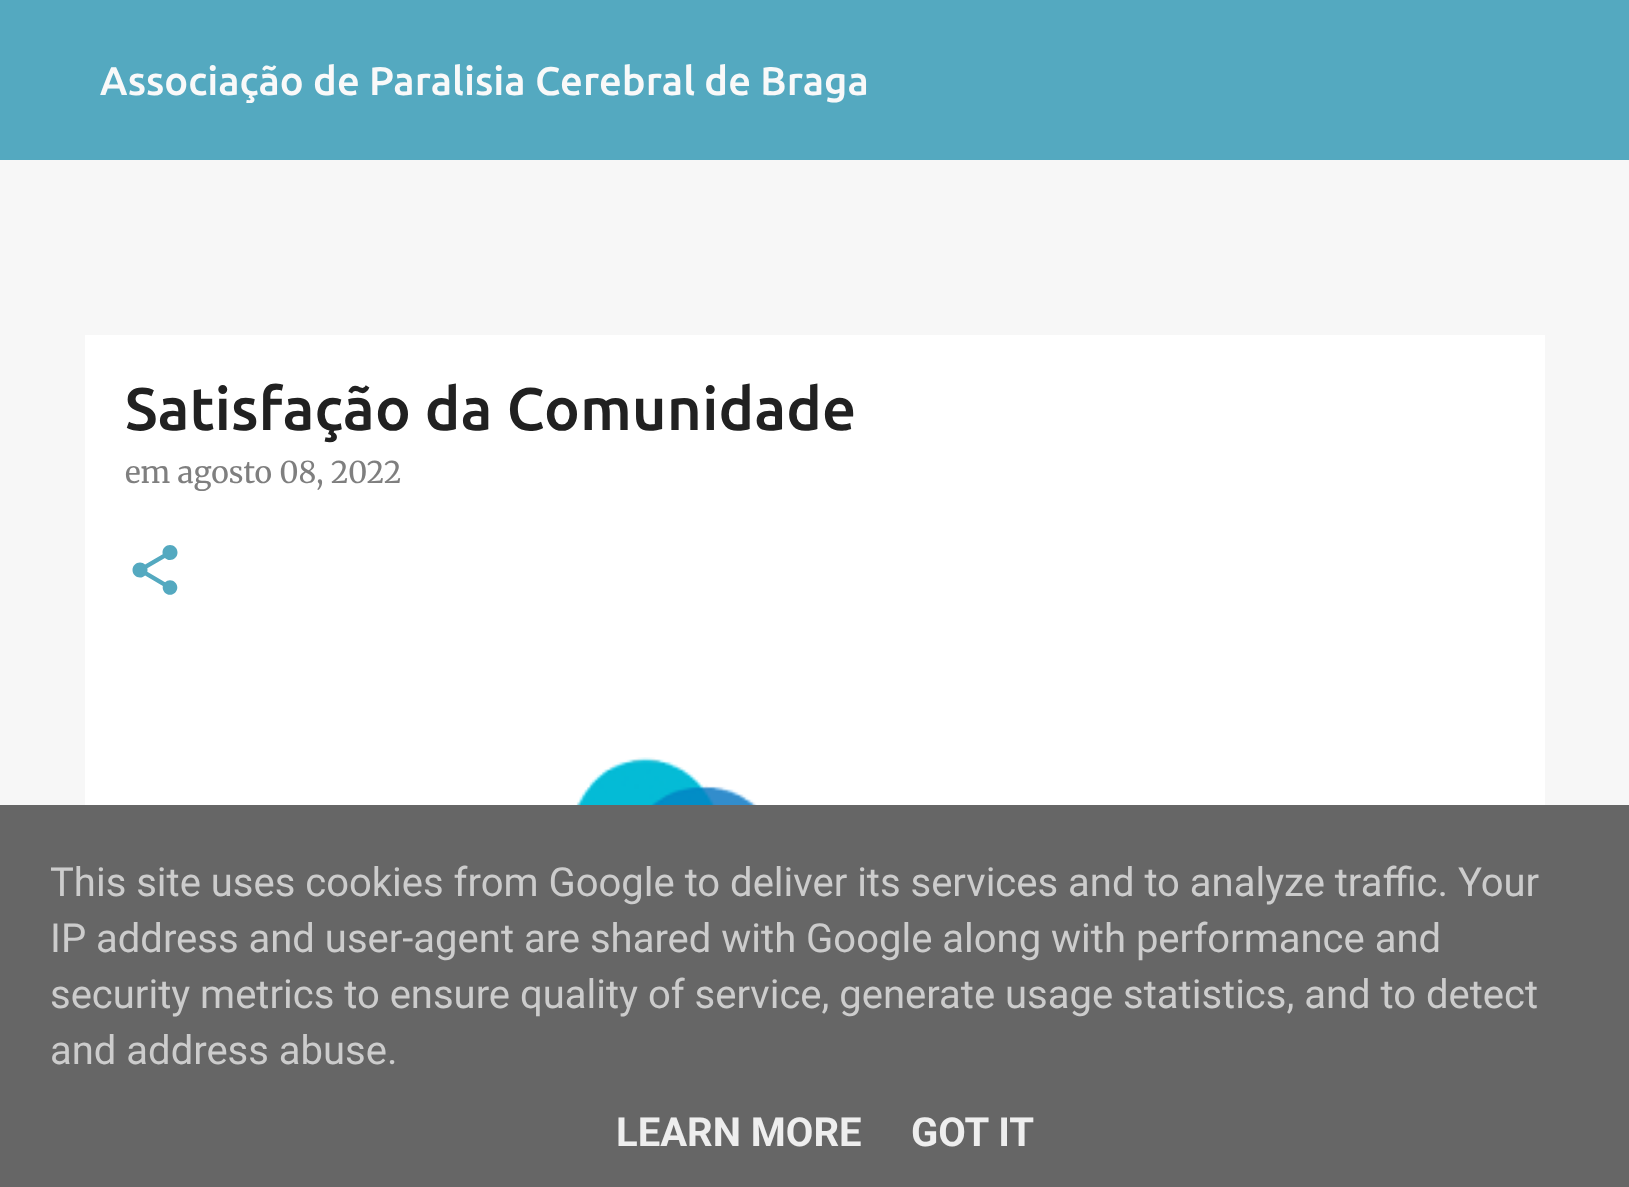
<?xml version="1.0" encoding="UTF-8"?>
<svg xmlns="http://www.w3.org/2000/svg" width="1629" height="1187">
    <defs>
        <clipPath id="clip1"><rect x="100" y="58" width="1390" height="45"/></clipPath>
    </defs>
    <rect width="100%" height="100%" fill="#F7F7F7"/>
    <rect x="0" y="0" width="1629" height="160" fill="#54A9C0"/>
    <g clip-path="url(#clip1)">
        <text x="100" y="95" font-family="Ubuntu" font-size="40" font-weight="500" fill="#F9F9F9">Associação de Paralisia Cerebral de Braga</text>
    </g>
    <rect x="85" y="335" width="1460" height="470" fill="#FFFFFF"/>
    <text x="125" y="430" font-family="Ubuntu" font-size="60" font-weight="500" fill="#212121">Satisfação da Comunidade</text>
    <text x="125" y="483" font-family="Merriweather" font-size="30" fill="#7F7F7F">em agosto 08, 2022</text>
    <image x="132" y="545" width="46" height="50" href="img_01.png"/>
    <image x="576" y="757" width="181" height="48" href="img_02.png"/>
    <rect x="0" y="805" width="1629" height="382" fill="#666666"/>
    <text font-family="Roboto" font-size="40" fill="#CCCCCC">
        <tspan x="50" y="896">This site uses cookies from Google to deliver its services and to analyze traffic. Your</tspan>
        <tspan x="50" y="952">IP address and user-agent are shared with Google along with performance and</tspan>
        <tspan x="50" y="1008">security metrics to ensure quality of service, generate usage statistics, and to detect</tspan>
        <tspan x="50" y="1064">and address abuse.</tspan>
    </text>
    <text x="616" y="1146" font-family="Roboto" font-size="40" font-weight="700" fill="#EEEEEE">LEARN MORE</text>
    <text x="911" y="1146" font-family="Roboto" font-size="40" font-weight="700" fill="#EEEEEE">GOT IT</text>
</svg>
